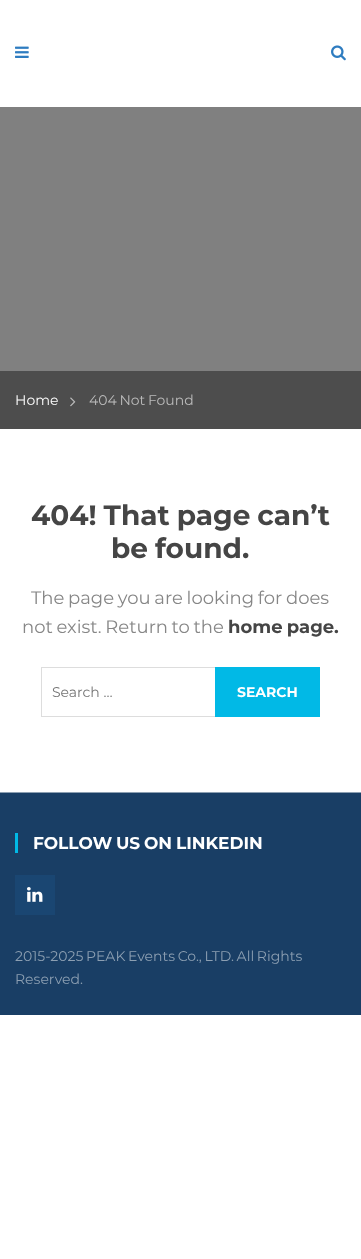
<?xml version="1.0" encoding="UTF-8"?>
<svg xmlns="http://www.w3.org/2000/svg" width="361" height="1259">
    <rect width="100%" height="100%" fill="#FFFFFF"/>
    <image x="15" y="46" width="14" height="12" href="img_01.png"/>
    <image x="331" y="45" width="15" height="16" href="img_02.png"/>
    <rect x="0" y="107" width="361" height="264" fill="#808080"/>
    <rect x="0" y="371" width="361" height="58" fill="#4D4D4D"/>
    <text x="15" y="405" font-family="Montserrat" font-size="14" fill="#FFFFFF">Home</text>
    <image x="70" y="397" width="6" height="10" href="img_03.png"/>
    <text x="89" y="405" word-spacing="-1" font-family="Montserrat" font-size="14" fill="#BBBBBB">404 Not Found</text>
    <text x="31" y="525" word-spacing="-1" font-family="Montserrat" font-size="28" font-weight="700" fill="#454545">404! That page can’t</text>
    <text x="111" y="558" word-spacing="-1" font-family="Montserrat" font-size="28" font-weight="700" fill="#454545">be found.</text>
    <text x="31" y="604" word-spacing="-1" font-family="Montserrat" font-size="18" fill="#868686">The page you are looking for does</text>
    <text x="22" y="633" word-spacing="-1" font-family="Montserrat" font-size="18" fill="#868686">not exist. Return to the</text>
    <text x="228" y="633" word-spacing="-1" font-family="Montserrat" font-size="18" font-weight="700" fill="#454545">home page.</text>
    <rect x="41.5" y="667.5" width="174" height="49" fill="none" stroke="#DDDDDD"/>
    <text x="52" y="697" font-family="Montserrat" font-size="14" fill="#757575">Search …</text>
    <rect x="215" y="667" width="105" height="50" fill="#01B9E6"/>
    <text x="237" y="697" font-family="Montserrat" font-size="14" font-weight="700" fill="#FFFFFF">SEARCH</text>
    <rect x="0" y="793" width="361" height="222" fill="#193E65"/>
    <rect x="0" y="792" width="361" height="1" fill="#8C9FB2"/>
    <rect x="15" y="833" width="3" height="20" fill="#01B9E6"/>
    <text x="33" y="849" word-spacing="-1" font-family="Montserrat" font-size="17" font-weight="700" fill="#FFFFFF">FOLLOW US ON LINKEDIN</text>
    <rect x="15" y="875" width="40" height="40" fill="#1A4672"/>
    <image x="27" y="887" width="16" height="15" href="img_04.png"/>
    <text font-family="Montserrat" font-size="14" fill="#8C9FB2">
        <tspan x="15" y="961" word-spacing="-1">2015-2025 PEAK Events Co., LTD. All Rights</tspan>
        <tspan x="15" y="984">Reserved.</tspan>
    </text>
</svg>
